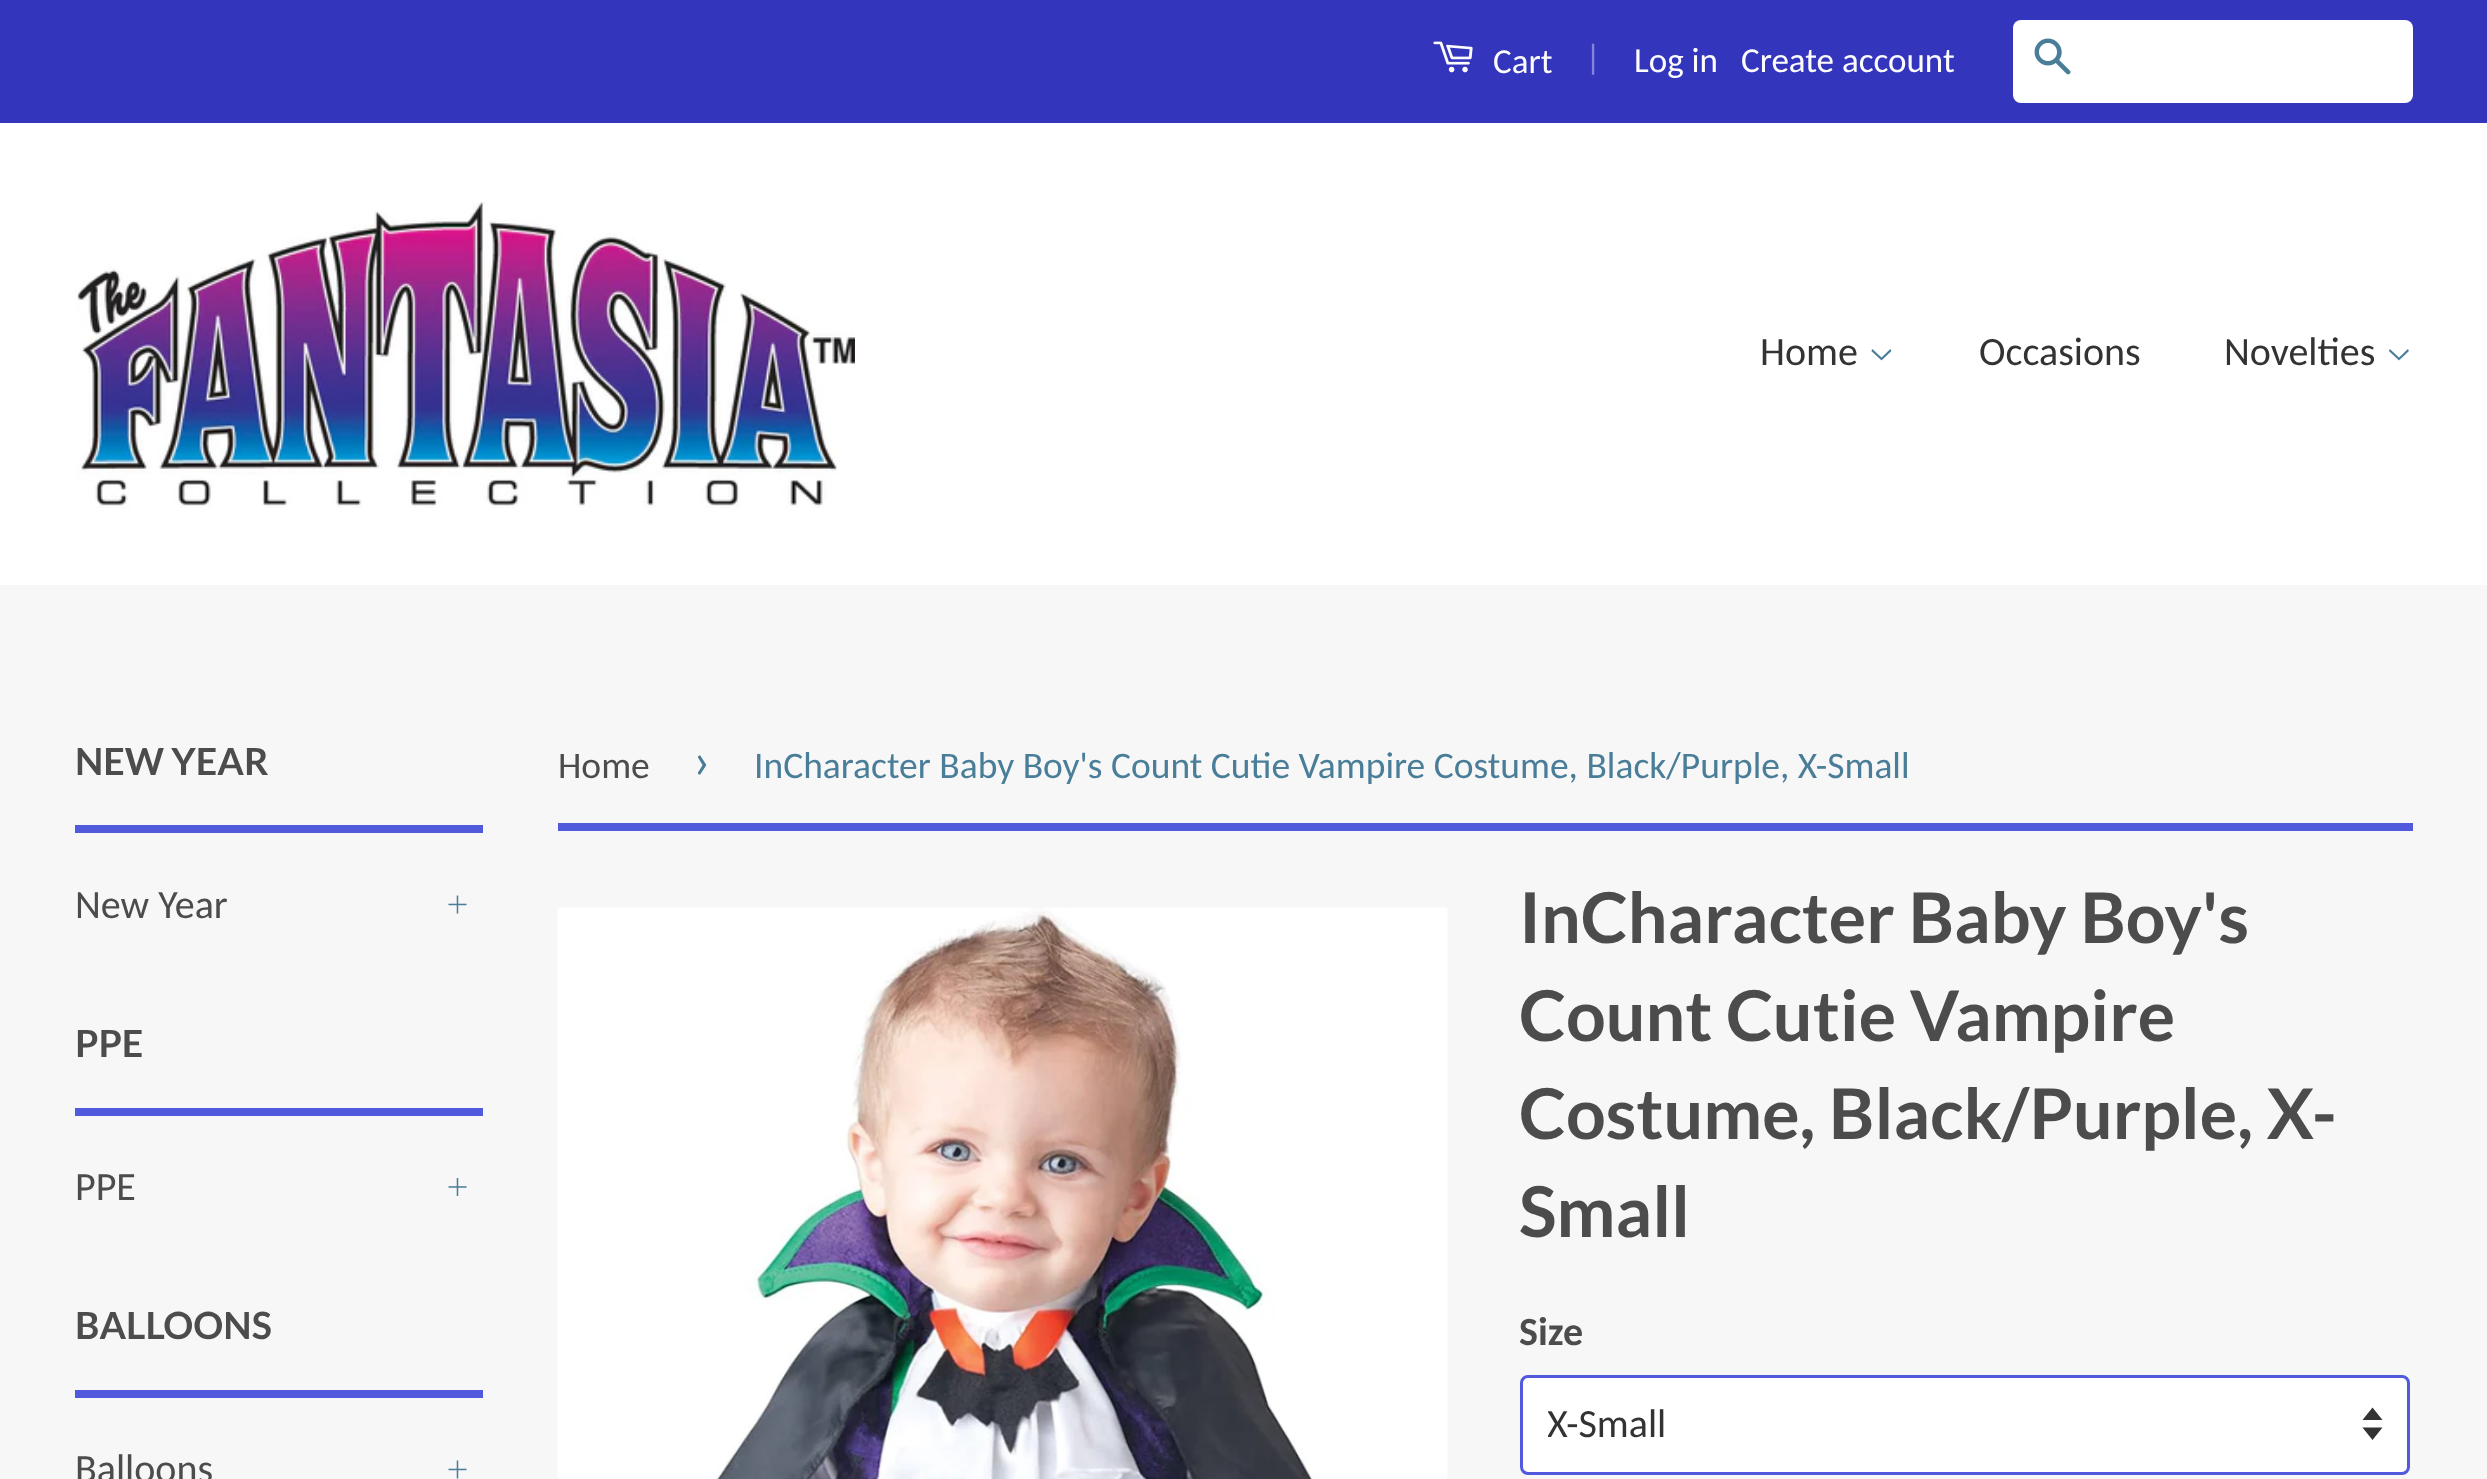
<?xml version="1.0" encoding="UTF-8"?>
<svg xmlns="http://www.w3.org/2000/svg" width="2487" height="1479">
    <defs>
        <clipPath id="clip1"><rect x="1548" y="1398" width="790" height="55"/></clipPath>
    </defs>
    <rect width="100%" height="100%" fill="#F7F7F7"/>
    <rect x="0" y="0" width="2487" height="123" fill="#3335BC"/>
    <image x="1433" y="41" width="40" height="32" href="img_01.png"/>
    <text x="1493" y="73" font-family="Carlito" font-size="35" fill="#FDFCFD">Cart</text>
    <text x="1585" y="69" font-family="Carlito" font-size="35" fill="#8485D6">|</text>
    <text x="1634" y="72" font-family="Carlito" font-size="35" fill="#FDFCFD">Log in</text>
    <text x="1741" y="72" font-family="Carlito" font-size="35" fill="#FDFCFD">Create account</text>
    <rect x="2013" y="20" width="400" height="83" rx="8" fill="#FFFFFF"/>
    <image x="2034" y="38" width="37" height="37" href="img_02.png"/>
    <rect x="0" y="123" width="2487" height="462" fill="#FFFFFF"/>
    <image x="75" y="202" width="780" height="306" href="img_03.png"/>
    <text x="1760" y="365" font-family="Carlito" font-size="40" fill="#333333">Home</text>
    <image x="1871" y="349" width="21" height="12" href="img_04.png"/>
    <text x="1979" y="365" font-family="Carlito" font-size="40" fill="#333333">Occasions</text>
    <text x="2224" y="365" font-family="Carlito" font-size="40" fill="#333333">Novelties</text>
    <image x="2389" y="349" width="20" height="12" href="img_05.png"/>
    <rect x="75" y="825" width="408" height="8" fill="#5159DC"/>
    <text x="75" y="775" font-family="Lato" font-size="37.5" font-weight="700" fill="#4C4C4C">NEW YEAR</text>
    <text x="75" y="918" font-family="Carlito" font-size="40" fill="#4C4C4C">New Year</text>
    <image x="448" y="895" width="19" height="19" href="img_06.png"/>
    <rect x="75" y="1108" width="408" height="8" fill="#5159DC"/>
    <text x="75" y="1057" font-family="Lato" font-size="37.5" font-weight="700" fill="#4C4C4C">PPE</text>
    <text x="75" y="1200" font-family="Carlito" font-size="40" fill="#4C4C4C">PPE</text>
    <image x="448" y="1178" width="19" height="18" href="img_07.png"/>
    <rect x="75" y="1390" width="408" height="8" fill="#5159DC"/>
    <text x="75" y="1339" font-family="Lato" font-size="37.5" font-weight="700" fill="#4C4C4C">BALLOONS</text>
    <text x="75" y="1482" font-family="Carlito" font-size="40" fill="#4C4C4C">Balloons</text>
    <image x="448" y="1460" width="19" height="19" href="img_06.png"/>
    <rect x="558" y="823" width="1855" height="8" fill="#5159DC"/>
    <text x="558" y="778" font-family="Carlito" font-size="37.5" fill="#4C4C4C">Home</text>
    <text x="693" y="778" font-family="Carlito" font-size="52" fill="#497D98">›</text>
    <text x="754" y="778" font-family="Carlito" font-size="37.5" fill="#497D98">InCharacter Baby Boy's Count Cutie Vampire Costume, Black/Purple, X-Small</text>
    <image x="557" y="907" width="891" height="572" href="img_08.png"/>
    <text font-family="Lato" font-size="70" font-weight="700" fill="#4C4C4C">
        <tspan x="1519" y="943">InCharacter Baby Boy's</tspan>
        <tspan x="1519" y="1041">Count Cutie Vampire</tspan>
        <tspan x="1519" y="1139">Costume, Black/Purple, X-</tspan>
        <tspan x="1519" y="1237">Small</tspan>
    </text>
    <text x="1519" y="1345" font-family="Carlito" font-size="40" font-weight="700" fill="#4C4C4C">Size</text>
    <rect x="1520" y="1375" width="890" height="100" rx="8" fill="#FFFFFF"/>
    <path d="M 2362.5 1427.5 L 2372.5 1440 L 2382.5 1427.5 Z M 2372.5 1407.5 L 2362.5 1420 H 2382.5 Z" fill="#333333"/>
    <rect x="1521.5" y="1376.5" width="887" height="97" rx="6.5" fill="none" stroke="#5159DC" stroke-width="3"/>
    <g clip-path="url(#clip1)">
        <text x="1547" y="1437" font-family="Carlito" font-size="40" fill="#333333">X-Small</text>
    </g>
</svg>
